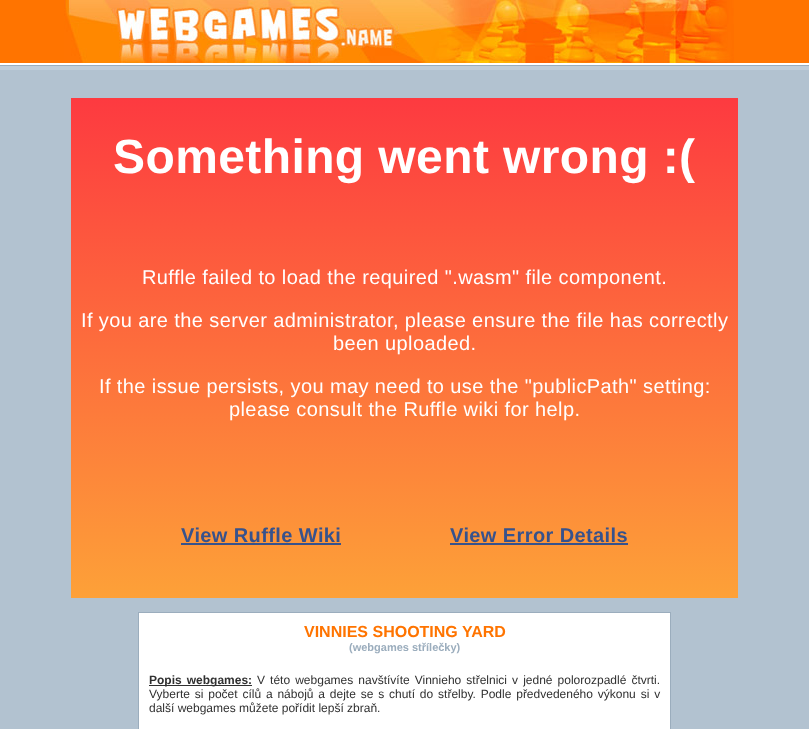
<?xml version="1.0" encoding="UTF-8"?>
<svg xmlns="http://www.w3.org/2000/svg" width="809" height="729">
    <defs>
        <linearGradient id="g1" gradientUnits="userSpaceOnUse" x1="404" y1="98" x2="405" y2="598"><stop offset="0" stop-color="#FD3A40"/><stop offset="1" stop-color="#FDA138"/></linearGradient>
    </defs>
    <rect width="100%" height="100%" fill="#B2C2D0"/>
    <image x="0" y="0" width="809" height="70" href="img_01.png"/>
    <image x="64" y="0" width="670" height="63" href="img_02.png"/>
    <rect x="71" y="98" width="667" height="500" fill="url(#g1)"/>
    <text x="113" y="173" font-family="Liberation Sans" font-size="48" font-weight="700" letter-spacing="0.4" fill="#FFFFFF">Something went wrong :(</text>
    <text x="142" y="284" font-family="Liberation Sans" font-size="20" letter-spacing="0.4" fill="#FFFFFF">Ruffle failed to load the required ".wasm" file component.</text>
    <text x="81" y="327" font-family="Liberation Sans" font-size="20" letter-spacing="0.4" fill="#FFFFFF">If you are the server administrator, please ensure the file has correctly</text>
    <text x="333" y="350" font-family="Liberation Sans" font-size="20" letter-spacing="0.4" fill="#FFFFFF">been uploaded.</text>
    <text x="99" y="393" font-family="Liberation Sans" font-size="20" letter-spacing="0.4" fill="#FFFFFF">If the issue persists, you may need to use the "publicPath" setting:</text>
    <text x="229" y="416" font-family="Liberation Sans" font-size="20" letter-spacing="0.4" fill="#FFFFFF">please consult the Ruffle wiki for help.</text>
    <text x="181" y="542" font-family="Liberation Sans" font-size="20" font-weight="700" letter-spacing="0.4" fill="#37528C">View Ruffle Wiki</text>
    <rect x="181" y="543" width="160" height="2" fill="#37528C"/>
    <text x="450" y="542" font-family="Liberation Sans" font-size="20" font-weight="700" letter-spacing="0.4" fill="#37528C">View Error Details</text>
    <rect x="450" y="543" width="178" height="2" fill="#37528C"/>
    <rect x="138.5" y="612.5" width="532" height="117" fill="#FFFFFF" stroke="#9BADBD"/>
    <text x="304" y="637" font-family="Liberation Sans" font-size="16" font-weight="700" fill="#FF7400">VINNIES SHOOTING YARD</text>
    <text x="349" y="651" font-family="Liberation Sans" font-size="11" font-weight="700" fill="#9BADBD">(webgames střílečky)</text>
    <rect x="149" y="685" width="103" height="1" fill="#303030"/>
    <text x="149" y="684" word-spacing="1.75" font-family="Liberation Sans" font-size="12" font-weight="700" fill="#303030">Popis webgames:</text>
    <text x="257" y="684" word-spacing="1.75" font-family="Liberation Sans" font-size="12" fill="#303030">V této webgames navštívíte Vinnieho střelnici v jedné polorozpadlé čtvrti.</text>
    <text font-family="Liberation Sans" font-size="12" fill="#303030">
        <tspan x="149" y="698" word-spacing="1.5">Vyberte si počet cílů a nábojů a dejte se s chutí do střelby. Podle předvedeného výkonu si v</tspan>
        <tspan x="149" y="712">další webgames můžete pořídit lepší zbraň.</tspan>
    </text>
</svg>
